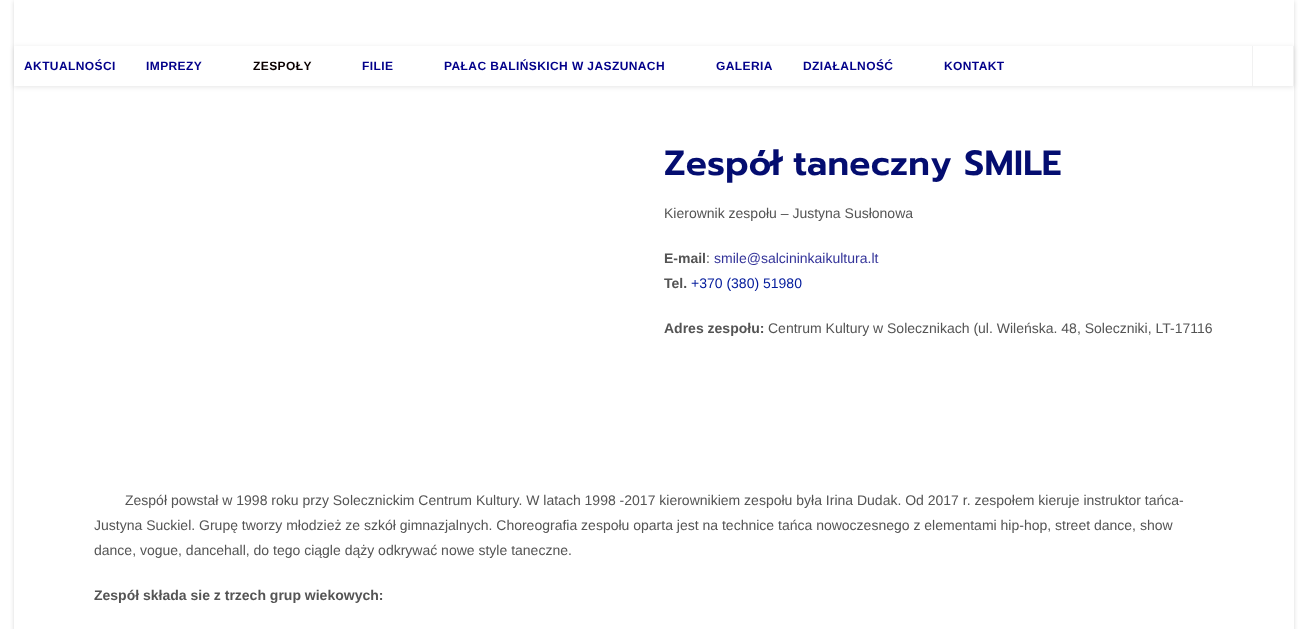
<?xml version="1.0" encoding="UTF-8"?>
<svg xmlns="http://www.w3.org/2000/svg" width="1308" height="629">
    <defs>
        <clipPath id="clip1"><path d="M 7 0 H 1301 V 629 H 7 Z M 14 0 H 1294 V 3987 H 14 Z" clip-rule="evenodd"/></clipPath>
        <filter id="blur1" x="-50%" y="-200%" width="200%" height="500%"><feGaussianBlur stdDeviation="2"/></filter>
        <clipPath id="clip2"><path d="M 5 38 H 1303 V 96 H 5 Z M 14 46 H 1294 V 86 H 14 Z" clip-rule="evenodd"/></clipPath>
        <filter id="blur2" x="-50%" y="-200%" width="200%" height="500%"><feGaussianBlur stdDeviation="2.5"/></filter>
    </defs>
    <rect width="100%" height="100%" fill="#FFFFFF"/>
    <g clip-path="url(#clip1)">
        <rect x="14" y="1" width="1280" height="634" fill="#000000" fill-opacity="0.15" filter="url(#blur1)"/>
    </g>
    <g clip-path="url(#clip2)">
        <rect x="14" y="47" width="1280" height="40" fill="#000000" fill-opacity="0.1" filter="url(#blur2)"/>
    </g>
    <text x="24" y="70" font-family="Liberation Sans" font-size="12" font-weight="700" letter-spacing="0.4" fill="#02008A">AKTUALNOŚCI</text>
    <text x="146" y="70" font-family="Liberation Sans" font-size="12" font-weight="700" letter-spacing="0.4" fill="#02008A">IMPREZY</text>
    <text x="253" y="70" font-family="Liberation Sans" font-size="12" font-weight="700" letter-spacing="0.4" fill="#0A0000">ZESPOŁY</text>
    <text x="362" y="70" font-family="Liberation Sans" font-size="12" font-weight="700" letter-spacing="0.4" fill="#02008A">FILIE</text>
    <text x="444" y="70" font-family="Liberation Sans" font-size="12" font-weight="700" letter-spacing="0.4" fill="#02008A">PAŁAC BALIŃSKICH W JASZUNACH</text>
    <text x="716" y="70" font-family="Liberation Sans" font-size="12" font-weight="700" letter-spacing="0.4" fill="#02008A">GALERIA</text>
    <text x="803" y="70" font-family="Liberation Sans" font-size="12" font-weight="700" letter-spacing="0.4" fill="#02008A">DZIAŁALNOŚĆ</text>
    <text x="944" y="70" font-family="Liberation Sans" font-size="12" font-weight="700" letter-spacing="0.4" fill="#02008A">KONTAKT</text>
    <rect x="1293" y="46" width="1" height="40" fill="#F1F1F1"/>
    <rect x="1252" y="46" width="1" height="40" fill="#F1F1F1"/>
    <text x="664" y="175" font-family="Prompt" font-size="35" font-weight="600" letter-spacing="0.3" fill="#040D70">Zespół taneczny SMILE</text>
    <text x="664" y="218" font-family="Liberation Sans" font-size="14" fill="#545454">Kierownik zespołu – Justyna Susłonowa</text>
    <text x="664" y="263" font-family="Liberation Sans" font-size="14" font-weight="700" fill="#545454">E-mail</text>
    <text x="706" y="263" font-family="Liberation Sans" font-size="14" fill="#545454">:</text>
    <text x="714" y="263" font-family="Liberation Sans" font-size="14" fill="#333399">smile@salcininkaikultura.lt</text>
    <text x="664" y="288" font-family="Liberation Sans" font-size="14" font-weight="700" fill="#545454">Tel.</text>
    <text x="691" y="288" font-family="Liberation Sans" font-size="14" fill="#00199B">+370 (380) 51980</text>
    <text x="664" y="333" font-family="Liberation Sans" font-size="14" font-weight="700" fill="#545454">Adres zespołu:</text>
    <text x="768" y="333" font-family="Liberation Sans" font-size="14" fill="#545454">Centrum Kultury w Solecznikach (ul. Wileńska. 48, Soleczniki, LT-17116</text>
    <text x="125" y="505" font-family="Liberation Sans" font-size="14" fill="#545454">Zespół powstał w 1998 roku przy Solecznickim Centrum Kultury. W latach 1998 -2017 kierownikiem zespołu była Irina Dudak. Od 2017 r. zespołem kieruje instruktor tańca-</text>
    <text font-family="Liberation Sans" font-size="14" fill="#545454">
        <tspan x="94" y="530">Justyna Suckiel. Grupę tworzy młodzież ze szkół gimnazjalnych. Choreografia zespołu oparta jest na technice tańca nowoczesnego z elementami hip-hop, street dance, show</tspan>
        <tspan x="94" y="555">dance, vogue, dancehall, do tego ciągle dąży odkrywać nowe style taneczne.</tspan>
    </text>
    <text x="94" y="600" font-family="Liberation Sans" font-size="14" font-weight="700" fill="#545454">Zespół składa sie z trzech grup wiekowych:</text>
</svg>
